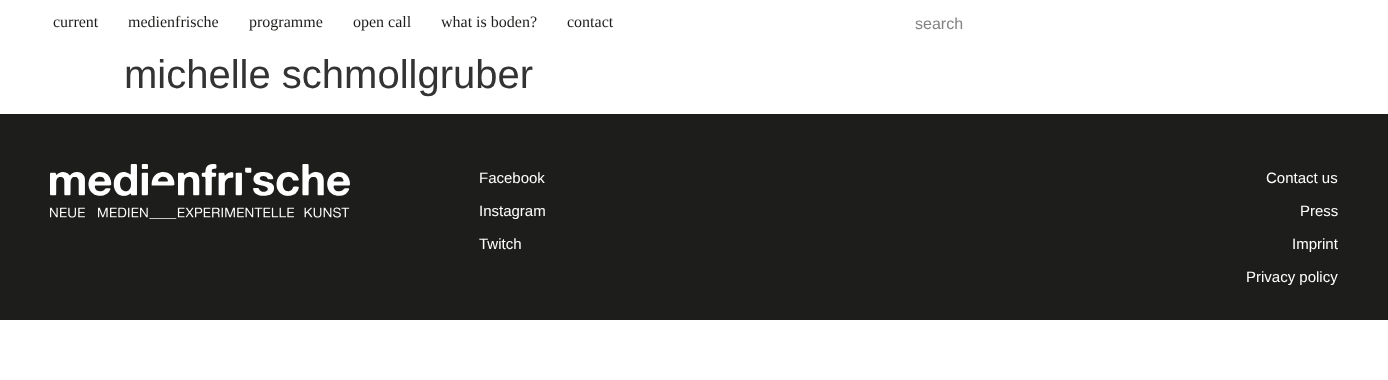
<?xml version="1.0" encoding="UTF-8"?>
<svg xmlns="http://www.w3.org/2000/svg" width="1388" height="380">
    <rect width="100%" height="100%" fill="#FFFFFF"/>
    <text x="53" y="27" font-family="Liberation Serif" font-size="16" fill="#1D1D1B">current</text>
    <text x="128" y="27" font-family="Liberation Serif" font-size="16" fill="#1D1D1B">medienfrische</text>
    <text x="249" y="27" font-family="Liberation Serif" font-size="16" fill="#1D1D1B">programme</text>
    <text x="353" y="27" font-family="Liberation Serif" font-size="16" fill="#1D1D1B">open call</text>
    <text x="441" y="27" font-family="Liberation Serif" font-size="16" fill="#1D1D1B">what is boden?</text>
    <text x="567" y="27" font-family="Liberation Serif" font-size="16" fill="#1D1D1B">contact</text>
    <text x="915" y="29" font-family="Liberation Sans" font-size="16" fill="#838383">search</text>
    <text x="124" y="88" font-family="Liberation Sans" font-size="40" fill="#333333">michelle schmollgruber</text>
    <rect x="0" y="114" width="1388" height="206" fill="#1D1D1B"/>
    <image x="50" y="164" width="300" height="55" href="img_01.png"/>
    <text x="479" y="183" font-family="Liberation Sans" font-size="15" fill="#FFFFFF">Facebook</text>
    <text x="479" y="216" font-family="Liberation Sans" font-size="15" fill="#FFFFFF">Instagram</text>
    <text x="479" y="249" font-family="Liberation Sans" font-size="15" fill="#FFFFFF">Twitch</text>
    <text x="1266" y="183" font-family="Liberation Sans" font-size="15" fill="#FFFFFF">Contact us</text>
    <text x="1300" y="216" font-family="Liberation Sans" font-size="15" fill="#FFFFFF">Press</text>
    <text x="1292" y="249" font-family="Liberation Sans" font-size="15" fill="#FFFFFF">Imprint</text>
    <text x="1246" y="282" font-family="Liberation Sans" font-size="15" fill="#FFFFFF">Privacy policy</text>
</svg>
